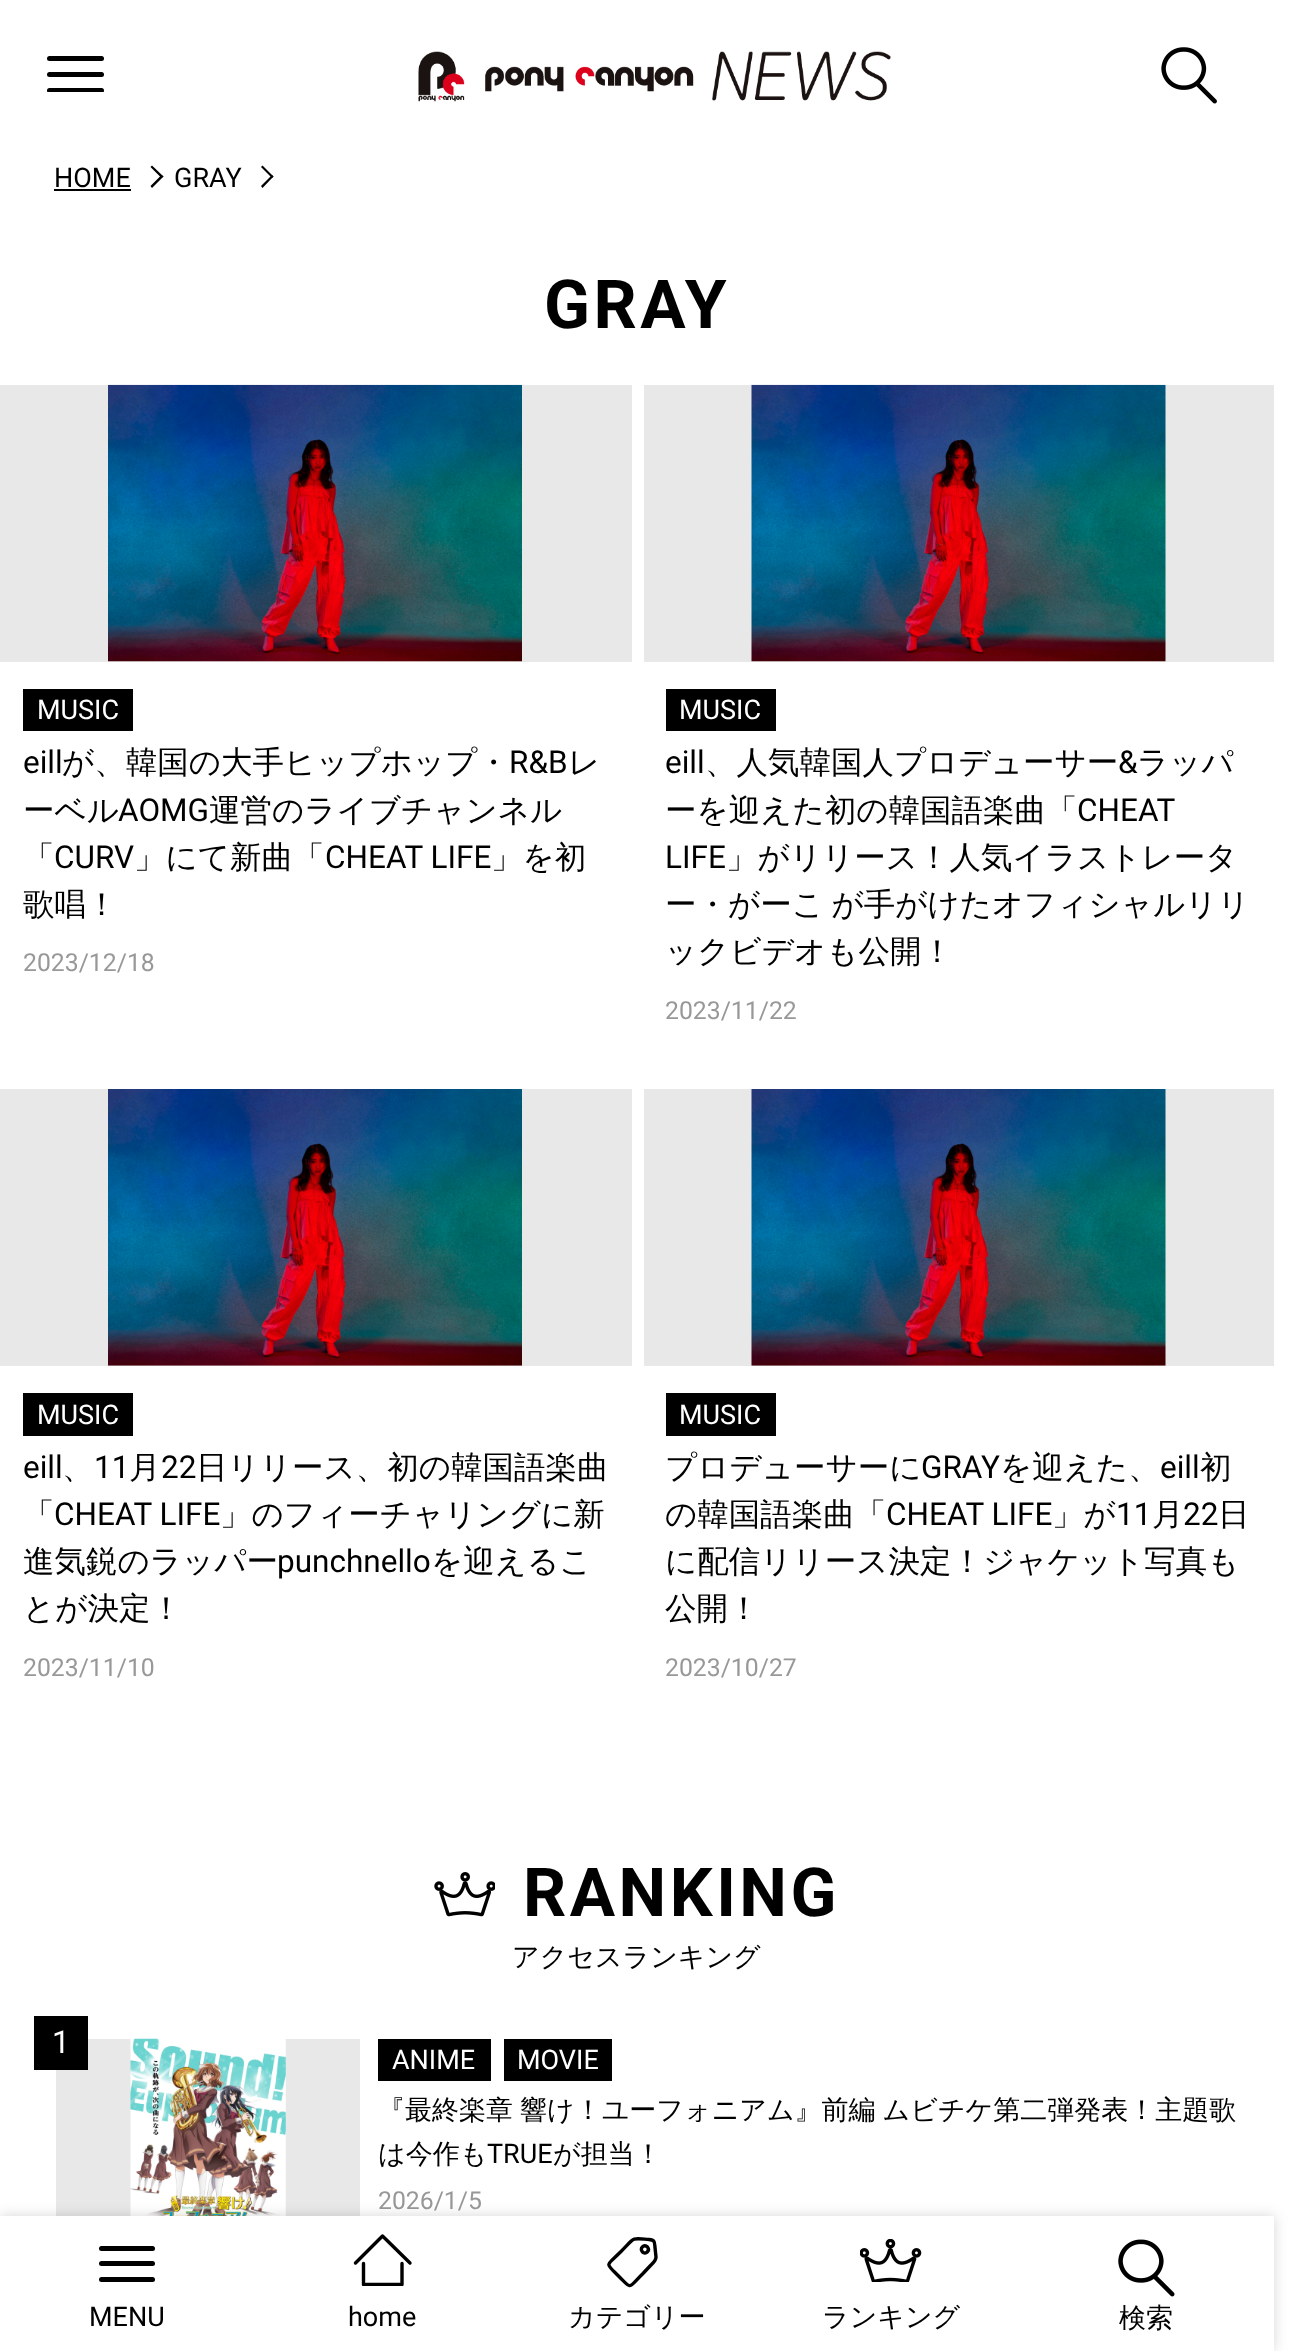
<?xml version="1.0" encoding="UTF-8"?>
<svg xmlns="http://www.w3.org/2000/svg" width="1307" height="2351">
    <defs>
        <clipPath id="clip1"><rect x="47" y="56" width="57" height="36"/></clipPath>
        <filter id="blur1" x="-50%" y="-200%" width="200%" height="500%"><feGaussianBlur stdDeviation="7"/></filter>
        <clipPath id="clip2"><rect x="353" y="2234" width="59" height="52"/></clipPath>
    </defs>
    <rect width="100%" height="100%" fill="#FFFFFF"/>
    <rect x="47" y="56" width="57" height="5" rx="2.5" fill="#000000"/>
    <rect x="47" y="72" width="57" height="5" rx="2.5" fill="#000000"/>
    <g clip-path="url(#clip1)">
        <rect x="47" y="88" width="57" height="5" rx="2.5" fill="#000000"/>
    </g>
    <image x="418" y="51" width="473" height="51" href="img_01.png"/>
    <image x="1161" y="47" width="56" height="57" href="img_02.png"/>
    <text x="54" y="187" font-family="Roboto" font-size="27" fill="#000000">HOME</text>
    <rect x="54" y="189" width="77" height="2" fill="#000000"/>
    <path d="M 152 165.5 L 163.5 176.5 L 161.5 178 L 150.5 167 Z" fill="#000000"/>
    <path d="M 161.5 175 L 163.5 176.5 L 152 188 L 150.5 186 Z" fill="#000000"/>
    <text x="174" y="187" font-family="Roboto" font-size="27" fill="#000000">GRAY</text>
    <path d="M 262.5 165.5 L 273.5 176.5 L 272 178 L 261 167 Z" fill="#000000"/>
    <path d="M 272 175 L 273.5 176.5 L 262.5 188 L 261 186 Z" fill="#000000"/>
    <text x="544" y="328" font-family="Roboto" font-size="67.5" font-weight="700" letter-spacing="3.5" fill="#000000">GRAY</text>
    <rect x="0" y="385" width="632" height="277" fill="#E8E8E8"/>
    <image x="108" y="384" width="414" height="278" href="img_03.png"/>
    <rect x="23" y="689" width="110" height="42" fill="#000000"/>
    <text x="37" y="719" font-family="Roboto" font-size="27" fill="#FFFFFF">MUSIC</text>
    <text x="23" y="773" font-family="Roboto" font-size="31.5" fill="#000000">eill</text>
    <text x="62" y="773" font-family="WenQuanYi Zen Hei" font-size="31.5" font-weight="500" fill="#000000">が、韓国の大手ヒップホップ・</text>
    <text x="509" y="773" font-family="Roboto" font-size="31.5" fill="#000000">R&amp;B</text>
    <text x="568" y="773" font-family="WenQuanYi Zen Hei" font-size="31.5" font-weight="500" fill="#000000">レ</text>
    <text x="23" y="821" font-family="WenQuanYi Zen Hei" font-size="31.5" font-weight="500" fill="#000000">ーベル</text>
    <text x="118" y="821" font-family="Roboto" font-size="31.5" fill="#000000">AOMG</text>
    <text x="209" y="821" font-family="WenQuanYi Zen Hei" font-size="31.5" font-weight="500" fill="#000000">運営のライブチャンネル</text>
    <text x="23" y="868" font-family="WenQuanYi Zen Hei" font-size="31.5" font-weight="500" fill="#000000">「</text>
    <text x="54" y="868" font-family="Roboto" font-size="31.5" fill="#000000">CURV</text>
    <text x="134" y="868" font-family="WenQuanYi Zen Hei" font-size="31.5" font-weight="500" fill="#000000">」にて新曲「</text>
    <text x="325" y="868" font-family="Roboto" font-size="31.5" fill="#000000">CHEAT LIFE</text>
    <text x="491" y="868" font-family="WenQuanYi Zen Hei" font-size="31.5" font-weight="500" fill="#000000">」を初</text>
    <text x="23" y="915" font-family="WenQuanYi Zen Hei" font-size="31.5" font-weight="500" fill="#000000">歌唱！</text>
    <text x="23" y="971" font-family="Roboto" font-size="24.75" fill="#989898">2023/12/18</text>
    <rect x="644" y="385" width="630" height="277" fill="#E8E8E8"/>
    <image x="751" y="384" width="415" height="278" href="img_04.png"/>
    <rect x="666" y="689" width="110" height="42" fill="#000000"/>
    <text x="679" y="719" font-family="Roboto" font-size="27" fill="#FFFFFF">MUSIC</text>
    <text x="665" y="773" font-family="Roboto" font-size="31.5" fill="#000000">eill</text>
    <text x="705" y="773" font-family="WenQuanYi Zen Hei" font-size="31.5" font-weight="500" fill="#000000">、人気韓国人プロデューサー</text>
    <text x="1118" y="773" font-family="Roboto" font-size="31.5" fill="#000000">&amp;</text>
    <text x="1137" y="773" font-family="WenQuanYi Zen Hei" font-size="31.5" font-weight="500" fill="#000000">ラッパ</text>
    <text x="665" y="821" font-family="WenQuanYi Zen Hei" font-size="31.5" font-weight="500" fill="#000000">ーを迎えた初の韓国語楽曲「</text>
    <text x="1077" y="821" font-family="Roboto" font-size="31.5" fill="#000000">CHEAT</text>
    <text x="665" y="868" font-family="Roboto" font-size="31.5" fill="#000000">LIFE</text>
    <text x="726" y="868" font-family="WenQuanYi Zen Hei" font-size="31.5" font-weight="500" fill="#000000">」がリリース！人気イラストレータ</text>
    <text font-family="WenQuanYi Zen Hei" font-size="31.5" font-weight="500" fill="#000000">
        <tspan x="665" y="915" word-spacing="-2">ー・がーこ が手がけたオフィシャルリリ</tspan>
        <tspan x="665" y="962">ックビデオも公開！</tspan>
    </text>
    <text x="665" y="1019" font-family="Roboto" font-size="24.75" fill="#989898">2023/11/22</text>
    <rect x="0" y="1089" width="632" height="277" fill="#E8E8E8"/>
    <image x="108" y="1089" width="414" height="277" href="img_05.png"/>
    <rect x="23" y="1393" width="110" height="43" fill="#000000"/>
    <text x="37" y="1424" font-family="Roboto" font-size="27" fill="#FFFFFF">MUSIC</text>
    <text x="23" y="1478" font-family="Roboto" font-size="31.5" fill="#000000">eill</text>
    <text x="62" y="1478" font-family="WenQuanYi Zen Hei" font-size="31.5" font-weight="500" fill="#000000">、</text>
    <text x="94" y="1478" font-family="Roboto" font-size="31.5" fill="#000000">11</text>
    <text x="129" y="1478" font-family="WenQuanYi Zen Hei" font-size="31.5" font-weight="500" fill="#000000">月</text>
    <text x="161" y="1478" font-family="Roboto" font-size="31.5" fill="#000000">22</text>
    <text x="196" y="1478" font-family="WenQuanYi Zen Hei" font-size="31.5" font-weight="500" fill="#000000">日リリース、初の韓国語楽曲</text>
    <text x="23" y="1525" font-family="WenQuanYi Zen Hei" font-size="31.5" font-weight="500" fill="#000000">「</text>
    <text x="54" y="1525" font-family="Roboto" font-size="31.5" fill="#000000">CHEAT LIFE</text>
    <text x="220" y="1525" font-family="WenQuanYi Zen Hei" font-size="31.5" font-weight="500" fill="#000000">」のフィーチャリングに新</text>
    <text x="23" y="1572" font-family="WenQuanYi Zen Hei" font-size="31.5" font-weight="500" fill="#000000">進気鋭のラッパー</text>
    <text x="277" y="1572" font-family="Roboto" font-size="31.5" fill="#000000">punchnello</text>
    <text x="431" y="1572" font-family="WenQuanYi Zen Hei" font-size="31.5" font-weight="500" fill="#000000">を迎えるこ</text>
    <text x="23" y="1619" font-family="WenQuanYi Zen Hei" font-size="31.5" font-weight="500" fill="#000000">とが決定！</text>
    <text x="23" y="1676" font-family="Roboto" font-size="24.75" fill="#989898">2023/11/10</text>
    <rect x="644" y="1089" width="630" height="277" fill="#E8E8E8"/>
    <image x="751" y="1089" width="415" height="277" href="img_06.png"/>
    <rect x="666" y="1393" width="110" height="43" fill="#000000"/>
    <text x="679" y="1424" font-family="Roboto" font-size="27" fill="#FFFFFF">MUSIC</text>
    <text x="665" y="1478" font-family="WenQuanYi Zen Hei" font-size="31.5" font-weight="500" fill="#000000">プロデューサーに</text>
    <text x="921" y="1478" font-family="Roboto" font-size="31.5" fill="#000000">GRAY</text>
    <text x="1000" y="1478" font-family="WenQuanYi Zen Hei" font-size="31.5" font-weight="500" fill="#000000">を迎えた、</text>
    <text x="1160" y="1478" font-family="Roboto" font-size="31.5" fill="#000000">eill</text>
    <text x="1200" y="1478" font-family="WenQuanYi Zen Hei" font-size="31.5" font-weight="500" fill="#000000">初</text>
    <text x="665" y="1525" font-family="WenQuanYi Zen Hei" font-size="31.5" font-weight="500" fill="#000000">の韓国語楽曲「</text>
    <text x="886" y="1525" font-family="Roboto" font-size="31.5" fill="#000000">CHEAT LIFE</text>
    <text x="1052" y="1525" font-family="WenQuanYi Zen Hei" font-size="31.5" font-weight="500" fill="#000000">」が</text>
    <text x="1116" y="1525" font-family="Roboto" font-size="31.5" fill="#000000">11</text>
    <text x="1152" y="1525" font-family="WenQuanYi Zen Hei" font-size="31.5" font-weight="500" fill="#000000">月</text>
    <text x="1183" y="1525" font-family="Roboto" font-size="31.5" fill="#000000">22</text>
    <text x="1218" y="1525" font-family="WenQuanYi Zen Hei" font-size="31.5" font-weight="500" fill="#000000">日</text>
    <text font-family="WenQuanYi Zen Hei" font-size="31.5" font-weight="500" fill="#000000">
        <tspan x="665" y="1572">に配信リリース決定！ジャケット写真も</tspan>
        <tspan x="665" y="1619">公開！</tspan>
    </text>
    <text x="665" y="1676" font-family="Roboto" font-size="24.75" fill="#989898">2023/10/27</text>
    <image x="434" y="1872" width="61" height="45" href="img_07.png"/>
    <text x="523" y="1916" font-family="Roboto" font-size="67.5" font-weight="700" letter-spacing="3.5" fill="#000000">RANKING</text>
    <text x="512" y="1966" font-family="WenQuanYi Zen Hei" font-size="27" font-weight="500" fill="#000000">アクセスランキング</text>
    <rect x="56" y="2039" width="304" height="177" fill="#E8E8E8"/>
    <rect x="34" y="2016" width="54" height="54" fill="#000000"/>
    <text x="52" y="2053" font-family="Roboto" font-size="31.5" fill="#FFFFFF">1</text>
    <image x="130" y="2038" width="156" height="178" href="img_08.png"/>
    <rect x="378" y="2039" width="113" height="42" fill="#000000"/>
    <text x="392" y="2069" font-family="Roboto" font-size="27" fill="#FFFFFF">ANIME</text>
    <rect x="504" y="2039" width="108" height="42" fill="#000000"/>
    <text x="517" y="2069" font-family="Roboto" font-size="27" fill="#FFFFFF">MOVIE</text>
    <text font-family="WenQuanYi Zen Hei" font-size="27" font-weight="500" fill="#000000">
        <tspan x="378" y="2119" word-spacing="-1">『最終楽章 響け！ユーフォニアム』前編 ムビチケ第二弾発表！主題歌</tspan>
        <tspan x="378" y="2163">は今作も</tspan>
    </text>
    <text x="487" y="2163" font-family="Roboto" font-size="27" fill="#000000">TRUE</text>
    <text x="553" y="2163" font-family="WenQuanYi Zen Hei" font-size="27" font-weight="500" fill="#000000">が担当！</text>
    <text x="378" y="2209" font-family="Roboto" font-size="24.75" fill="#989898">2026/1/5</text>
    <rect x="0" y="2216" width="1274" height="135" fill="#000000" fill-opacity="0.16" filter="url(#blur1)"/>
    <rect x="0" y="2216" width="1274" height="135" fill="#FFFFFF"/>
    <rect x="99" y="2246" width="56" height="5" rx="2.5" fill="#000000"/>
    <rect x="99" y="2261" width="56" height="5" rx="2.5" fill="#000000"/>
    <rect x="99" y="2277" width="56" height="5" rx="2.5" fill="#000000"/>
    <text x="89" y="2326" font-family="Roboto" font-size="27" fill="#000000">MENU</text>
    <path d="M 410 2263 L 382.5 2236 L 355.5 2263" fill="none" stroke="#000000" stroke-width="3.4" stroke-linecap="round" stroke-linejoin="round"/>
    <g clip-path="url(#clip2)">
        <path d="M 402 2263.5 V 2284.5 H 363.5 V 2263.5" fill="none" stroke="#000000" stroke-width="3.4" stroke-linecap="round" stroke-linejoin="round"/>
    </g>
    <text x="348" y="2326" font-family="Roboto" font-size="27" fill="#000000">home</text>
    <path d="M 656 2257 L 655 2247.5 C 654.5 2242 655 2240 649 2239.5 C 630.5 2238 635.5 2237 621 2251.5 C 606 2266.5 604.5 2262 618.5 2276 C 632.5 2290 627.5 2288.5 643 2273.5 L 650.5 2265.5 C 653 2263 656 2261 656 2257 Z" fill="none" stroke="#000000" stroke-width="3.4"/>
    <path d="M 642.5 2252 C 639 2248.5 644 2243.5 647.5 2247 C 650.5 2250.5 645.5 2255 642.5 2252 Z" fill="none" stroke="#000000" stroke-width="3.4" stroke-linecap="round" stroke-linejoin="round"/>
    <text x="568" y="2326" font-family="WenQuanYi Zen Hei" font-size="27" font-weight="500" fill="#000000">カテゴリー</text>
    <image x="860" y="2239" width="62" height="43" href="img_09.png"/>
    <text x="822" y="2326" font-family="WenQuanYi Zen Hei" font-size="27" font-weight="500" fill="#000000">ランキング</text>
    <image x="1118" y="2239" width="57" height="58" href="img_10.png"/>
    <text x="1119" y="2327" font-family="WenQuanYi Zen Hei" font-size="27" font-weight="500" fill="#000000">検索</text>
</svg>
